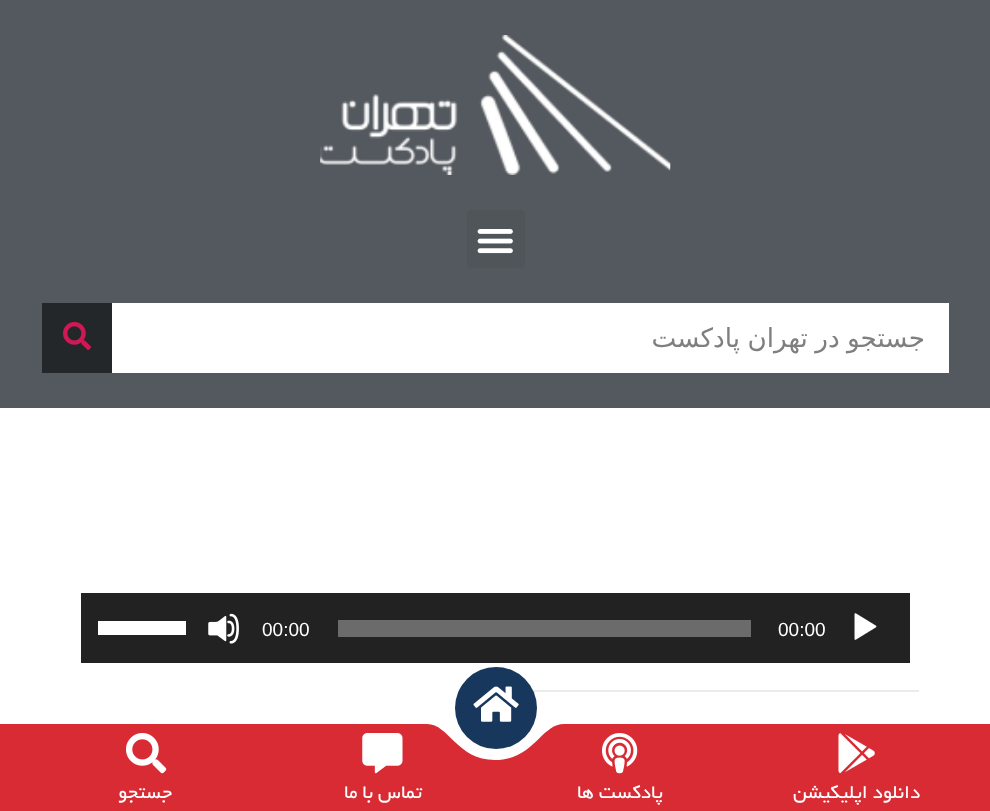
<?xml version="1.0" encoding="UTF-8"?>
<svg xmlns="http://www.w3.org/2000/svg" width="990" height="811">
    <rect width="100%" height="100%" fill="#FFFFFF"/>
    <rect x="0" y="0" width="990" height="408" fill="#54595F"/>
    <image x="320" y="35" width="351" height="140" href="img_01.png"/>
    <rect x="467" y="210" width="58" height="58" rx="5" fill="#50555A"/>
    <image x="477" y="229" width="36" height="25" href="img_02.png"/>
    <rect x="112" y="303" width="837" height="70" fill="#FFFFFF"/>
    <text x="925" y="347" word-spacing="-1" font-family="DejaVu Sans" font-size="26.25" direction="rtl" fill="#7F7F7F">جستجو در تهران پادکست</text>
    <rect x="42" y="303" width="70" height="70" fill="#24272A"/>
    <image x="63" y="322" width="28" height="28" href="img_03.png"/>
    <rect x="81" y="593" width="829" height="70" fill="#222222"/>
    <image x="854" y="613" width="23" height="27" href="img_04.png"/>
    <text x="778" y="636" font-family="Liberation Sans" font-size="19" fill="#FFFFFF">00:00</text>
    <rect x="338" y="620" width="413" height="17" fill="#6B6B6B"/>
    <text x="262" y="636" font-family="Liberation Sans" font-size="19" fill="#FFFFFF">00:00</text>
    <image x="208" y="613" width="31" height="31" href="img_05.png"/>
    <rect x="98" y="621" width="88" height="14" fill="#FFFFFF"/>
    <rect x="532" y="690" width="387" height="2" fill="#EBEBEB"/>
    <path d="M -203 724 H 427 C 449 724 457 760 495 760 C 534 760 541 724 564 724 H 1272 V 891 H -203 Z" fill="#D82B34" fill-rule="evenodd"/>
    <circle cx="496" cy="708" r="41" fill="#18375D"/>
    <image x="473" y="686" width="46" height="36" href="img_06.png"/>
    <image x="838" y="733" width="37" height="41" href="img_07.png"/>
    <text x="920" y="798" font-family="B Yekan" font-size="21" direction="rtl" fill="#FFFFFF">دانلود اپلیکیشن</text>
    <image x="602" y="733" width="36" height="41" href="img_08.png"/>
    <text x="663" y="798" font-family="B Yekan" font-size="21" direction="rtl" fill="#FFFFFF">پادکست ها</text>
    <image x="362" y="733" width="41" height="41" href="img_09.png"/>
    <text x="422" y="798" font-family="B Yekan" font-size="21" direction="rtl" fill="#FFFFFF">تماس با ما</text>
    <image x="126" y="733" width="41" height="41" href="img_10.png"/>
    <text x="172" y="798" font-family="B Yekan" font-size="21" direction="rtl" fill="#FFFFFF">جستجو</text>
</svg>
